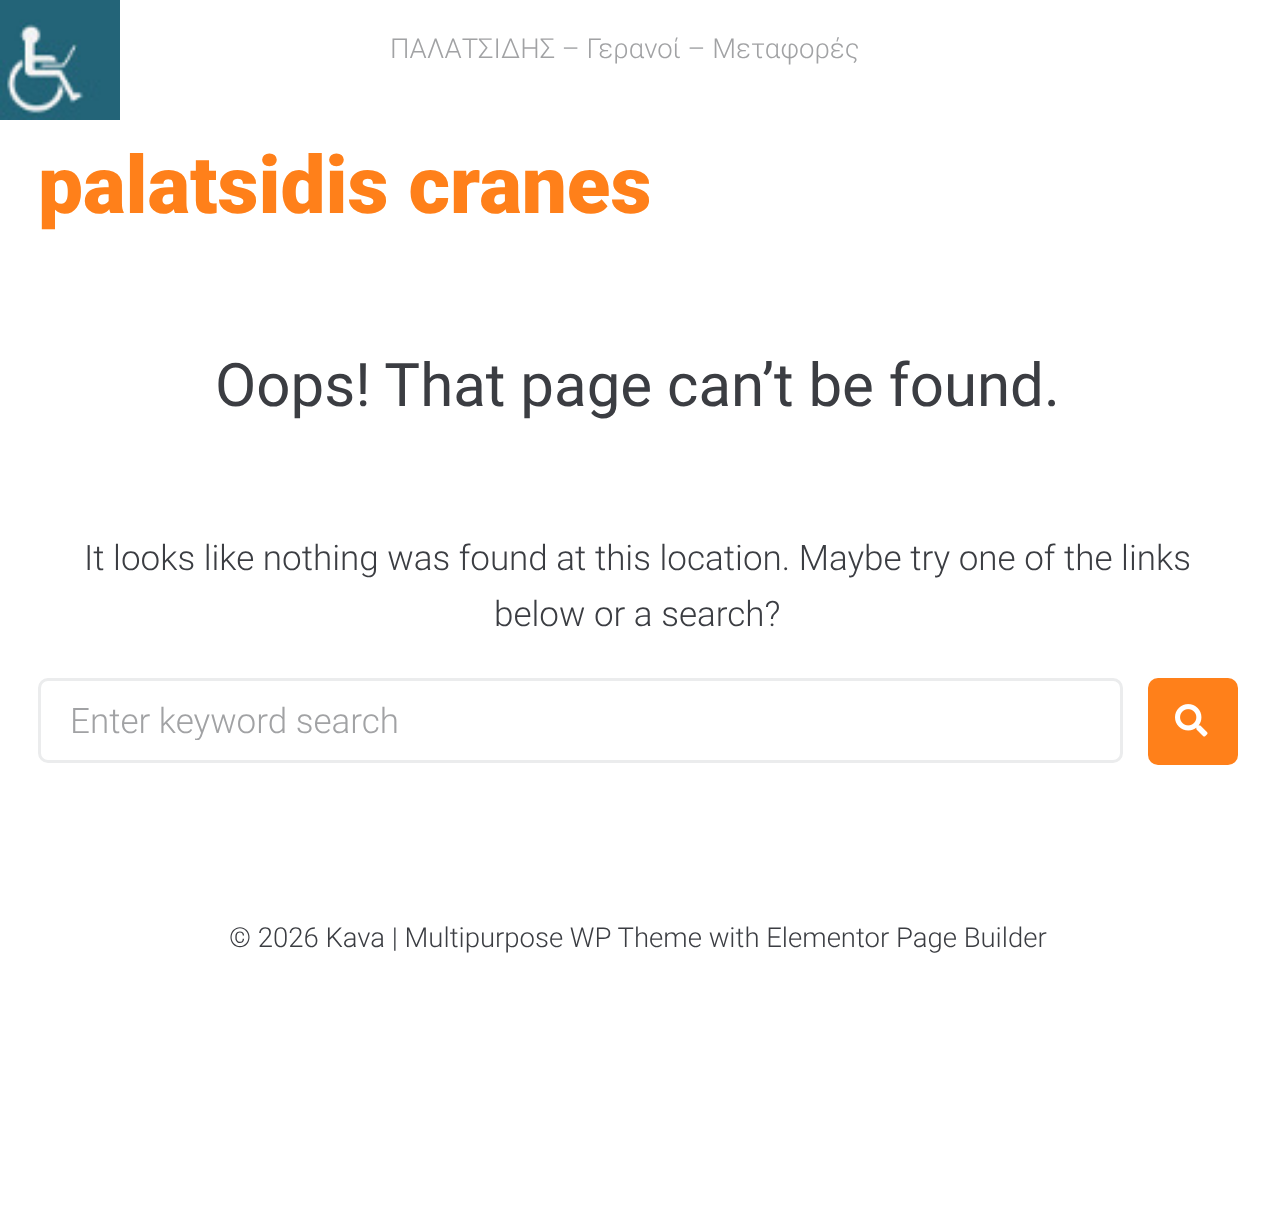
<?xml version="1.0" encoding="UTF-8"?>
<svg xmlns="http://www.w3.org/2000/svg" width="1273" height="1213">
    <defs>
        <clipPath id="clip1"><rect x="70" y="700" width="1010" height="40"/></clipPath>
    </defs>
    <rect width="100%" height="100%" fill="#FFFFFF"/>
    <image x="0" y="0" width="120" height="120" href="img_01.png"/>
    <text x="390" y="58" font-family="Roboto" font-size="27.5" font-weight="300" fill="#A1A2A4">ΠΑΛΑΤΣΙΔΗΣ – Γερανοί – Μεταφορές</text>
    <text x="38" y="213" font-family="Roboto" font-size="80" font-weight="900" fill="#FF801A">palatsidis cranes</text>
    <text x="215" y="406" font-family="Roboto" font-size="60" fill="#3B3D42">Oops! That page can’t be found.</text>
    <text x="84" y="570" font-family="Roboto" font-size="35" font-weight="300" fill="#3B3D42">It looks like nothing was found at this location. Maybe try one of the links</text>
    <text x="494" y="626" font-family="Roboto" font-size="35" font-weight="300" fill="#3B3D42">below or a search?</text>
    <rect x="39.5" y="679.5" width="1082" height="82" rx="8.5" fill="none" stroke="#EBECED" stroke-width="3"/>
    <g clip-path="url(#clip1)">
        <text x="70" y="733" font-family="Roboto" font-size="35" font-weight="300" fill="#A1A2A4">Enter keyword search</text>
    </g>
    <rect x="1148" y="678" width="90" height="87" rx="10" fill="#FF801A"/>
    <image x="1175" y="704" width="33" height="33" href="img_02.png"/>
    <text x="229" y="947" font-family="Roboto" font-size="27.5" font-weight="300" fill="#3B3D42">© 2026 Kava | Multipurpose WP Theme with Elementor Page Builder</text>
</svg>
